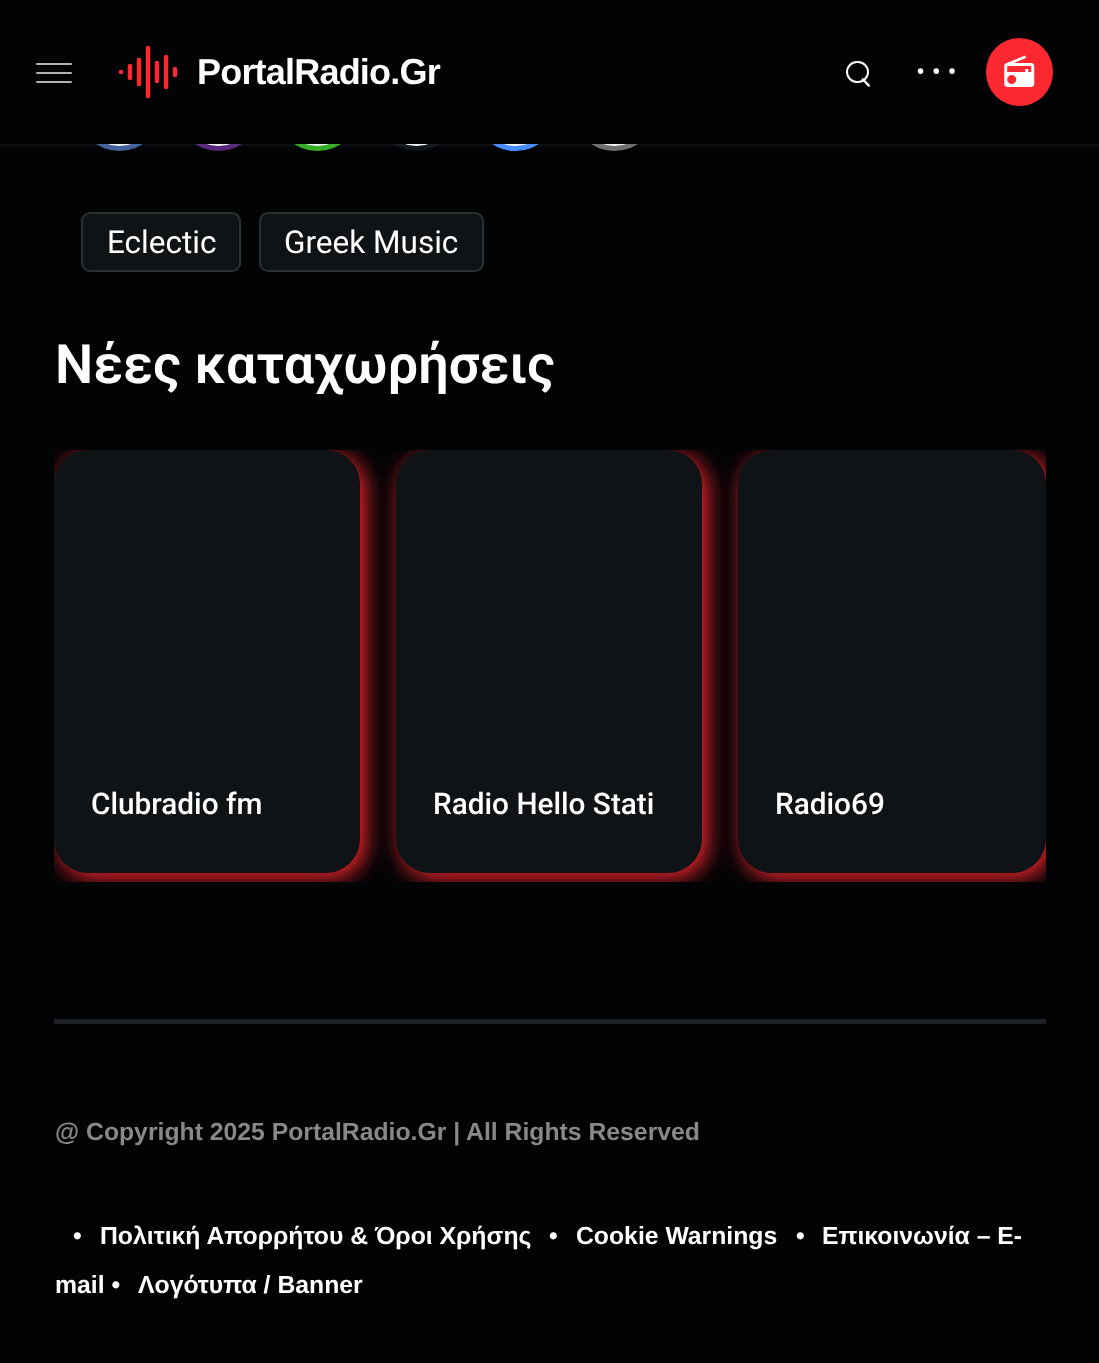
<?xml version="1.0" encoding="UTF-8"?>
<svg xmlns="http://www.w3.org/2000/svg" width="1099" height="1363">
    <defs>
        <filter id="blur1" x="-50%" y="-200%" width="200%" height="500%"><feGaussianBlur stdDeviation="1"/></filter>
        <clipPath id="clip1"><rect x="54" y="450" width="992" height="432"/></clipPath>
        <filter id="blur2" x="-50%" y="-200%" width="200%" height="500%"><feGaussianBlur stdDeviation="11"/></filter>
    </defs>
    <rect width="100%" height="100%" fill="#010305"/>
    <rect x="79.5" y="67.5" width="80" height="81" rx="40" fill="#FFFFFF" stroke="#43609C" stroke-width="5"/>
    <rect x="178.5" y="67.5" width="80" height="81" rx="40" fill="#FFFFFF" stroke="#59267C" stroke-width="5"/>
    <rect x="277.5" y="67.5" width="80" height="81" rx="40" fill="#FFFFFF" stroke="#34AF23" stroke-width="5"/>
    <rect x="376.5" y="67.5" width="80" height="81" rx="40" fill="#FFFFFF" stroke="#0F1419" stroke-width="5"/>
    <rect x="475.5" y="67.5" width="80" height="81" rx="40" fill="#FFFFFF" stroke="#468BFF" stroke-width="5"/>
    <rect x="574.5" y="67.5" width="80" height="81" rx="40" fill="#FFFFFF" stroke="#717070" stroke-width="5"/>
    <rect x="0" y="2" width="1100" height="144" fill="#828C96" fill-opacity="0.1" filter="url(#blur1)"/>
    <rect x="0" y="1" width="1099" height="143" fill="#010305"/>
    <rect x="36" y="72" width="36" height="2" rx="1" fill="#B3B3B4"/>
    <rect x="36" y="63" width="36" height="2" rx="1" fill="#B3B3B4"/>
    <rect x="36" y="81" width="36" height="2" rx="1" fill="#B3B3B4"/>
    <path d="M 121 72 H 121 M 130 66 V 78 M 139 60 V 84 M 148 48 V 96 M 157 63 V 81 M 166 57 V 87 M 175 69 V 75" fill="none" stroke="#FC282F" stroke-width="4.5" stroke-linecap="round" stroke-linejoin="round"/>
    <text x="197" y="84" font-family="Liberation Sans" font-size="36" font-weight="700" letter-spacing="-0.8" fill="#FFFFFF">PortalRadio.Gr</text>
    <rect x="847" y="62" width="21" height="20" rx="10" fill="none" stroke="#FFFFFF" stroke-width="2"/>
    <path d="M 863.5 78.5 L 868.5 83.5 C 871.5 86.5 869.5 88 867 85.5 L 864 82 C 863.5 81.5 860.5 79.5 862 78.5 C 862.5 78 863 78 863.5 78.5 Z" fill="#FFFFFF"/>
    <text x="916" y="81" font-family="Roboto" font-size="27" fill="#FFFFFF">• • •</text>
    <rect x="986" y="38" width="67" height="68" rx="33.5" fill="#FC282F"/>
    <image x="1004" y="55" width="31" height="32" href="img_01.png"/>
    <rect x="81" y="212" width="160" height="60" rx="9" fill="#101316"/>
    <rect x="82" y="213" width="158" height="58" rx="8" fill="none" stroke="#96AAAA" stroke-opacity="0.2" stroke-width="2"/>
    <text x="107" y="253" font-family="Roboto" font-size="31.5" fill="#FFFFFF">Eclectic</text>
    <rect x="259" y="212" width="225" height="60" rx="9" fill="#101316"/>
    <rect x="260" y="213" width="223" height="58" rx="8" fill="none" stroke="#96AAAA" stroke-opacity="0.2" stroke-width="2"/>
    <text x="284" y="253" font-family="Roboto" font-size="31.5" fill="#FFFFFF">Greek Music</text>
    <text x="55" y="383" font-family="Roboto" font-size="54" font-weight="600" fill="#FFFFFF">Νέες καταχωρήσεις</text>
    <g clip-path="url(#clip1)">
        <rect x="59" y="455" width="306" height="423" rx="34" fill="#FC282F" filter="url(#blur2)"/>
    </g>
    <rect x="54" y="450" width="306" height="423" rx="34" fill="#101316"/>
    <text x="91" y="814" font-family="Roboto" font-size="29.75" font-weight="500" fill="#FFFFFF">Clubradio fm</text>
    <g clip-path="url(#clip1)">
        <rect x="401" y="455" width="306" height="423" rx="34" fill="#FC282F" filter="url(#blur2)"/>
    </g>
    <rect x="396" y="450" width="306" height="423" rx="34" fill="#101316"/>
    <text x="433" y="814" font-family="Roboto" font-size="29.75" font-weight="500" fill="#FFFFFF">Radio Hello Stati</text>
    <g clip-path="url(#clip1)">
        <rect x="743" y="455" width="308" height="423" rx="34" fill="#FC282F" filter="url(#blur2)"/>
    </g>
    <rect x="738" y="450" width="308" height="423" rx="34" fill="#101316"/>
    <text x="775" y="814" font-family="Roboto" font-size="29.75" font-weight="500" fill="#FFFFFF">Radio69</text>
    <rect x="54" y="1019" width="992" height="5" fill="#1F2226"/>
    <text x="55" y="1140" font-family="Liberation Sans" font-size="24.75" font-weight="700" fill="#888888">@ Copyright 2025 PortalRadio.Gr | All Rights Reserved</text>
    <text x="73" y="1244" font-family="Liberation Sans" font-size="24.75" font-weight="700" fill="#FFFFFF">•</text>
    <text x="100" y="1244" font-family="Liberation Sans" font-size="24.75" font-weight="700" fill="#FFFFFF">Πολιτική Απορρήτου &amp; Όροι Χρήσης</text>
    <text x="549" y="1244" font-family="Liberation Sans" font-size="24.75" font-weight="700" fill="#FFFFFF">•</text>
    <text x="576" y="1244" font-family="Liberation Sans" font-size="24.75" font-weight="700" fill="#FFFFFF">Cookie Warnings</text>
    <text x="796" y="1244" font-family="Liberation Sans" font-size="24.75" font-weight="700" fill="#FFFFFF">•</text>
    <text x="822" y="1244" font-family="Liberation Sans" font-size="24.75" font-weight="700" fill="#FFFFFF">Επικοινωνία – E-</text>
    <text x="55" y="1293" font-family="Liberation Sans" font-size="24.75" font-weight="700" fill="#FFFFFF">mail •</text>
    <text x="138" y="1293" font-family="Liberation Sans" font-size="24.75" font-weight="700" fill="#FFFFFF">Λογότυπα / Banner</text>
</svg>
